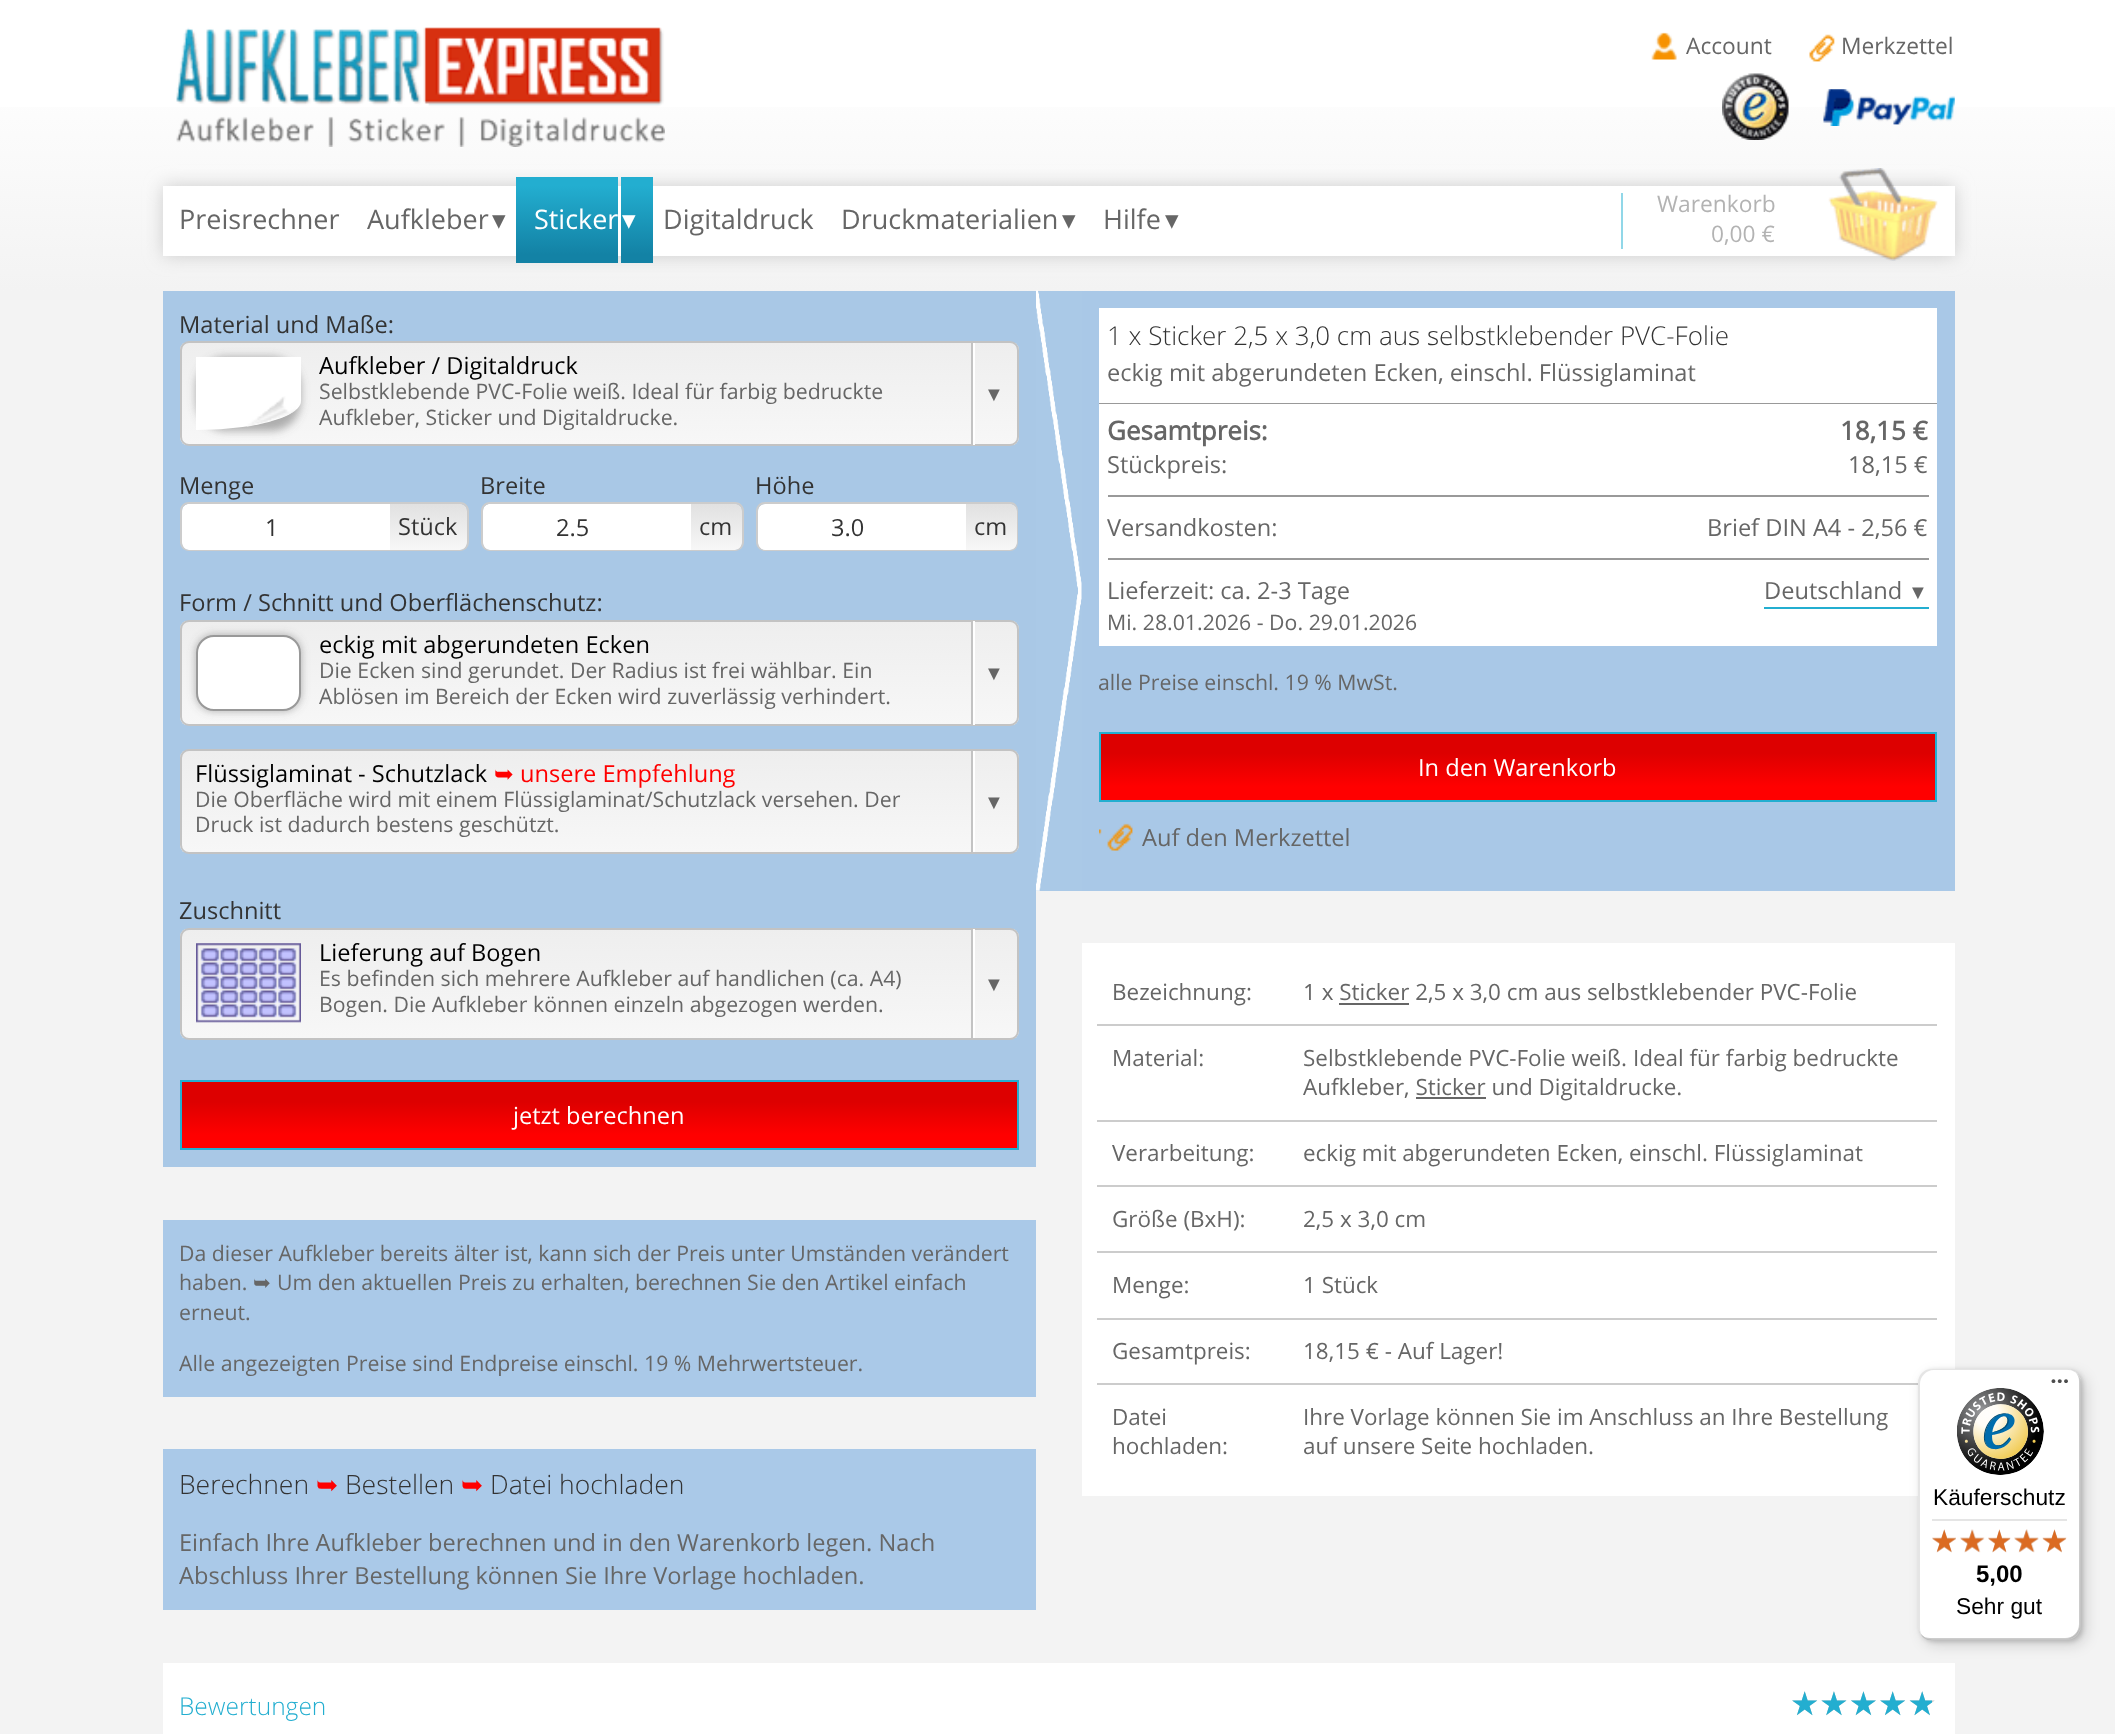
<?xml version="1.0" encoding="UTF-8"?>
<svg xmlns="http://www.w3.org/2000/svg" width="2115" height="1734">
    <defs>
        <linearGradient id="g1" gradientUnits="userSpaceOnUse" x1="1058" y1="0" x2="1058" y2="291"><stop offset="0.2" stop-color="#FFFFFF"/><stop offset="1" stop-color="#F3F3F3"/></linearGradient>
        <filter id="blur1" x="-50%" y="-200%" width="200%" height="500%"><feGaussianBlur stdDeviation="9"/></filter>
        <linearGradient id="g2" gradientUnits="userSpaceOnUse" x1="567" y1="177" x2="567" y2="263"><stop offset="0.1" stop-color="#23AED0"/><stop offset="0.9" stop-color="#1382A5"/></linearGradient>
        <linearGradient id="g3" gradientUnits="userSpaceOnUse" x1="637" y1="177" x2="637" y2="263"><stop offset="0.1" stop-color="#23AED0"/><stop offset="0.9" stop-color="#1382A5"/></linearGradient>
        <clipPath id="clip1"><rect x="180" y="341" width="839" height="105" rx="9"/></clipPath>
        <linearGradient id="g4" gradientUnits="userSpaceOnUse" x1="599" y1="343" x2="599" y2="445"><stop offset="0" stop-color="#EEEEEE"/><stop offset="1" stop-color="#F7F7F7"/></linearGradient>
        <filter id="blur2" x="-50%" y="-200%" width="200%" height="500%"><feGaussianBlur stdDeviation="4.5"/></filter>
        <linearGradient id="g5" gradientUnits="userSpaceOnUse" x1="429" y1="504" x2="429" y2="550"><stop offset="0" stop-color="#E1E1E1"/><stop offset="1" stop-color="#F7F7F7"/></linearGradient>
        <linearGradient id="g6" gradientUnits="userSpaceOnUse" x1="717" y1="504" x2="717" y2="550"><stop offset="0" stop-color="#E1E1E1"/><stop offset="1" stop-color="#F7F7F7"/></linearGradient>
        <linearGradient id="g7" gradientUnits="userSpaceOnUse" x1="991" y1="504" x2="991" y2="550"><stop offset="0" stop-color="#E1E1E1"/><stop offset="1" stop-color="#F7F7F7"/></linearGradient>
        <clipPath id="clip2"><rect x="180" y="620" width="839" height="106" rx="9"/></clipPath>
        <linearGradient id="g8" gradientUnits="userSpaceOnUse" x1="599" y1="621" x2="599" y2="725"><stop offset="0" stop-color="#EEEEEE"/><stop offset="1" stop-color="#F7F7F7"/></linearGradient>
        <clipPath id="clip3"><rect x="180" y="749" width="839" height="105" rx="9"/></clipPath>
        <linearGradient id="g9" gradientUnits="userSpaceOnUse" x1="599" y1="751" x2="599" y2="852"><stop offset="0" stop-color="#EEEEEE"/><stop offset="1" stop-color="#F7F7F7"/></linearGradient>
        <clipPath id="clip4"><rect x="180" y="928" width="839" height="112" rx="9"/></clipPath>
        <linearGradient id="g10" gradientUnits="userSpaceOnUse" x1="599" y1="929" x2="599" y2="1038"><stop offset="0" stop-color="#EEEEEE"/><stop offset="1" stop-color="#F7F7F7"/></linearGradient>
        <linearGradient id="g11" gradientUnits="userSpaceOnUse" x1="599" y1="1082" x2="599" y2="1148"><stop offset="0.3" stop-color="#DD0000"/><stop offset="0.8" stop-color="#FF0000"/></linearGradient>
        <linearGradient id="g12" gradientUnits="userSpaceOnUse" x1="1518" y1="733" x2="1518" y2="800"><stop offset="0.3" stop-color="#DD0000"/><stop offset="0.8" stop-color="#FF0000"/></linearGradient>
        <clipPath id="clip5"><rect x="1790" y="1687" width="142" height="33"/></clipPath>
        <filter id="blur3" x="-50%" y="-200%" width="200%" height="500%"><feGaussianBlur stdDeviation="7"/></filter>
        <filter id="blur4" x="-50%" y="-200%" width="200%" height="500%"><feGaussianBlur stdDeviation="2"/></filter>
    </defs>
    <rect width="100%" height="100%" fill="#FFFFFF"/>
    <rect x="0" y="107" width="2115" height="184" fill="url(#g1)"/>
    <image x="176" y="27" width="489" height="120" href="img_01.png"/>
    <rect x="163" y="186" width="1792" height="70" fill="#CCCCCC" filter="url(#blur1)"/>
    <rect x="163" y="186" width="1792" height="70" fill="#FFFFFF"/>
    <text x="179" y="229" font-family="Open Sans" font-size="27" fill="#666666">Preisrechner</text>
    <text x="367" y="229" font-family="Open Sans" font-size="27" fill="#666666">Aufkleber</text>
    <text x="492" y="229" font-family="DejaVu Sans" font-size="27" fill="#666666">▾</text>
    <rect x="516" y="177" width="102" height="86" fill="url(#g2)"/>
    <text x="534" y="229" font-family="Open Sans" font-size="27" fill="#FFFFFF">Sticker</text>
    <rect x="621" y="177" width="32" height="86" fill="url(#g3)"/>
    <text x="622" y="229" font-family="DejaVu Sans" font-size="27" fill="#FFFFFF">▾</text>
    <text x="663" y="229" font-family="Open Sans" font-size="27" fill="#666666">Digitaldruck</text>
    <text x="841" y="229" font-family="Open Sans" font-size="27" fill="#666666">Druckmaterialien</text>
    <text x="1062" y="229" font-family="DejaVu Sans" font-size="27" fill="#666666">▾</text>
    <text x="1103" y="229" font-family="Open Sans" font-size="27" fill="#666666">Hilfe</text>
    <text x="1165" y="229" font-family="DejaVu Sans" font-size="27" fill="#666666">▾</text>
    <image x="1651" y="32" width="26" height="28" href="img_02.png"/>
    <text x="1686" y="54" font-family="Open Sans" font-size="22.75" fill="#666666">Account</text>
    <image x="1809" y="34" width="26" height="28" href="img_03.png"/>
    <text x="1841" y="54" font-family="Open Sans" font-size="22.75" fill="#666666">Merkzettel</text>
    <rect x="1621" y="193" width="2" height="56" fill="#91D7E8"/>
    <text x="1657" y="212" font-family="Open Sans" font-size="22.75" fill="#B3B3B3">Warenkorb</text>
    <text x="1711" y="242" font-family="Open Sans" font-size="22.75" fill="#B3B3B3">0,00 €</text>
    <image x="1828" y="168" width="110" height="93" href="img_04.png"/>
    <image x="1722" y="73" width="67" height="67" href="img_05.png"/>
    <image x="1823" y="89" width="132" height="37" href="img_06.png"/>
    <rect x="0" y="291" width="2115" height="1443" fill="#F3F3F3"/>
    <rect x="163" y="291" width="873" height="876" fill="#A9C8E6"/>
    <text x="179" y="333" font-family="Open Sans" font-size="23.6" fill="#333333">Material und Maße:</text>
    <g clip-path="url(#clip1)">
        <rect x="180" y="343" width="839" height="102" fill="url(#g4)"/>
    </g>
    <rect x="181" y="342" width="837" height="103" rx="8" fill="none" stroke="#C3C3C3" stroke-width="2"/>
    <rect x="196" y="357" width="105" height="74" rx="30" fill="#666666" fill-opacity="0.5" filter="url(#blur2)"/>
    <path d="M 196 357 H 301 V 401 C 301 417 254 430 196 430 Z" fill="#FFFFFF"/>
    <image x="247" y="396" width="49" height="31" href="img_07.png"/>
    <text x="319" y="374" font-family="Open Sans" font-size="23.6" fill="#000000">Aufkleber / Digitaldruck</text>
    <text font-family="Open Sans" font-size="21.25" fill="#666666">
        <tspan x="319" y="399">Selbstklebende PVC-Folie weiß. Ideal für farbig bedruckte</tspan>
        <tspan x="319" y="425">Aufkleber, Sticker und Digitaldrucke.</tspan>
    </text>
    <rect x="973" y="343" width="2" height="102" fill="#FFFFFF"/>
    <rect x="971" y="343" width="2" height="102" fill="#C3C3C3"/>
    <text x="984" y="401" font-family="Liberation Sans" font-size="20" fill="#666666">▼</text>
    <text x="179" y="494" font-family="Open Sans" font-size="23.6" fill="#333333">Menge</text>
    <path d="M 189 504 H 390 V 550 H 189 C 185 550 182 547 182 543 V 511 C 182 507 185 504 189 504 Z" fill="#FFFFFF"/>
    <path d="M 189 502 H 390 V 551 H 189 C 184 551 180 547 180 542 V 511 C 180 506 184 502 189 502 Z M 189 504 H 390 V 550 H 189 C 185 550 182 546 182 542 V 511 C 182 507 185 504 189 504 Z" fill="#CCCCCC" fill-rule="evenodd"/>
    <text x="265" y="536" font-family="Open Sans" font-size="23.6" fill="#333333">1</text>
    <path d="M 390 504 H 460 C 464 504 467 507 467 511 V 543 C 467 547 464 550 460 550 H 390 Z" fill="url(#g5)"/>
    <path d="M 390 502 H 460 C 465 502 469 506 469 511 V 542 C 469 547 465 551 460 551 H 390 Z M 390 504 H 460 C 464 504 467 507 467 511 V 542 C 467 546 464 550 460 550 H 390 Z" fill="#CCCCCC" fill-rule="evenodd"/>
    <text x="398" y="535" font-family="Open Sans" font-size="23.6" fill="#333333">Stück</text>
    <text x="480" y="494" font-family="Open Sans" font-size="23.6" fill="#333333">Breite</text>
    <path d="M 490 504 H 691 V 550 H 490 C 486 550 483 547 483 543 V 511 C 483 507 486 504 490 504 Z" fill="#FFFFFF"/>
    <path d="M 490 502 H 691 V 551 H 490 C 485 551 481 547 481 542 V 511 C 481 506 485 502 490 502 Z M 490 504 H 691 V 550 H 490 C 486 550 483 546 483 542 V 511 C 483 507 486 504 490 504 Z" fill="#CCCCCC" fill-rule="evenodd"/>
    <text x="556" y="536" font-family="Open Sans" font-size="23.6" fill="#333333">2.5</text>
    <path d="M 691 504 H 735 C 739 504 742 507 742 511 V 543 C 742 547 739 550 735 550 H 691 Z" fill="url(#g6)"/>
    <path d="M 691 502 H 735 C 740 502 744 506 744 511 V 542 C 744 547 740 551 735 551 H 691 Z M 691 504 H 735 C 739 504 742 507 742 511 V 542 C 742 546 739 550 735 550 H 691 Z" fill="#CCCCCC" fill-rule="evenodd"/>
    <text x="699" y="535" font-family="Open Sans" font-size="23.6" fill="#333333">cm</text>
    <text x="755" y="494" font-family="Open Sans" font-size="23.6" fill="#333333">Höhe</text>
    <path d="M 765 504 H 966 V 550 H 765 C 761 550 758 547 758 543 V 511 C 758 507 761 504 765 504 Z" fill="#FFFFFF"/>
    <path d="M 765 502 H 966 V 551 H 765 C 760 551 756 547 756 542 V 511 C 756 506 760 502 765 502 Z M 765 504 H 966 V 550 H 765 C 761 550 758 546 758 542 V 511 C 758 507 761 504 765 504 Z" fill="#CCCCCC" fill-rule="evenodd"/>
    <text x="831" y="536" font-family="Open Sans" font-size="23.6" fill="#333333">3.0</text>
    <path d="M 966 504 H 1010 C 1014 504 1017 507 1017 511 V 543 C 1017 547 1014 550 1010 550 H 966 Z" fill="url(#g7)"/>
    <path d="M 966 502 H 1010 C 1015 502 1018 506 1018 511 V 542 C 1018 547 1015 551 1010 551 H 966 Z M 966 504 H 1010 C 1014 504 1017 507 1017 511 V 542 C 1017 546 1014 550 1010 550 H 966 Z" fill="#CCCCCC" fill-rule="evenodd"/>
    <text x="974" y="535" font-family="Open Sans" font-size="23.6" fill="#333333">cm</text>
    <text x="179" y="611" font-family="Open Sans" font-size="23.6" fill="#333333">Form / Schnitt und Oberflächenschutz:</text>
    <g clip-path="url(#clip2)">
        <rect x="180" y="621" width="839" height="104" fill="url(#g8)"/>
    </g>
    <rect x="181" y="621" width="837" height="104" rx="8" fill="none" stroke="#C3C3C3" stroke-width="2"/>
    <rect x="196" y="635" width="105" height="76" rx="18" fill="#666666" fill-opacity="0.5" filter="url(#blur2)"/>
    <rect x="197" y="636" width="103" height="74" rx="17" fill="#FFFFFF" stroke="#999999" stroke-width="2"/>
    <text x="319" y="653" font-family="Open Sans" font-size="23.6" fill="#000000">eckig mit abgerundeten Ecken</text>
    <text font-family="Open Sans" font-size="21.25" fill="#666666">
        <tspan x="319" y="678">Die Ecken sind gerundet. Der Radius ist frei wählbar. Ein</tspan>
        <tspan x="319" y="704">Ablösen im Bereich der Ecken wird zuverlässig verhindert.</tspan>
    </text>
    <rect x="973" y="621" width="2" height="104" fill="#FFFFFF"/>
    <rect x="971" y="621" width="2" height="104" fill="#C3C3C3"/>
    <text x="984" y="680" font-family="Liberation Sans" font-size="20" fill="#666666">▼</text>
    <g clip-path="url(#clip3)">
        <rect x="180" y="751" width="839" height="101" fill="url(#g9)"/>
    </g>
    <rect x="181" y="750" width="837" height="103" rx="8" fill="none" stroke="#C3C3C3" stroke-width="2"/>
    <text x="195" y="782" font-family="Open Sans" font-size="23.6" fill="#000000">Flüssiglaminat - Schutzlack</text>
    <text x="494" y="782" font-family="DejaVu Sans" font-size="23.6" fill="#FF0000">➥</text>
    <text x="520" y="782" font-family="Open Sans" font-size="23.6" fill="#FF0000">unsere Empfehlung</text>
    <text font-family="Open Sans" font-size="21.25" fill="#666666">
        <tspan x="195" y="807">Die Oberfläche wird mit einem Flüssiglaminat/Schutzlack versehen. Der</tspan>
        <tspan x="195" y="832">Druck ist dadurch bestens geschützt.</tspan>
    </text>
    <rect x="973" y="751" width="2" height="101" fill="#FFFFFF"/>
    <rect x="971" y="751" width="2" height="101" fill="#C3C3C3"/>
    <text x="984" y="809" font-family="Liberation Sans" font-size="20" fill="#666666">▼</text>
    <text x="179" y="919" font-family="Open Sans" font-size="23.6" fill="#333333">Zuschnitt</text>
    <g clip-path="url(#clip4)">
        <rect x="180" y="929" width="839" height="109" fill="url(#g10)"/>
    </g>
    <rect x="181" y="929" width="837" height="110" rx="8" fill="none" stroke="#C3C3C3" stroke-width="2"/>
    <image x="196" y="943" width="105" height="80" href="img_08.png"/>
    <text x="319" y="961" font-family="Open Sans" font-size="23.6" fill="#000000">Lieferung auf Bogen</text>
    <text font-family="Open Sans" font-size="21.25" fill="#666666">
        <tspan x="319" y="986">Es befinden sich mehrere Aufkleber auf handlichen (ca. A4)</tspan>
        <tspan x="319" y="1012">Bogen. Die Aufkleber können einzeln abgezogen werden.</tspan>
    </text>
    <rect x="973" y="929" width="2" height="109" fill="#FFFFFF"/>
    <rect x="971" y="929" width="2" height="109" fill="#C3C3C3"/>
    <text x="984" y="991" font-family="Liberation Sans" font-size="20" fill="#666666">▼</text>
    <rect x="182" y="1082" width="835" height="66" fill="url(#g11)"/>
    <rect x="181" y="1081" width="837" height="68" fill="none" stroke="#23AED0" stroke-width="2"/>
    <text x="513" y="1124" font-family="Open Sans" font-size="23.6" fill="#FFFFFF">jetzt berechnen</text>
    <rect x="1082" y="291" width="873" height="600" fill="#A9C8E7"/>
    <rect x="1036" y="291" width="46" height="600" fill="#AAC9E7"/>
    <image x="1036" y="290" width="46" height="601" href="img_09.png"/>
    <rect x="1099" y="308" width="838" height="95" fill="#FFFFFF"/>
    <rect x="1099" y="403" width="838" height="1" fill="#999999"/>
    <text x="1107" y="345" font-family="Open Sans" font-size="26" font-weight="300" fill="#333333">1 x Sticker 2,5 x 3,0 cm aus selbstklebender PVC-Folie</text>
    <text x="1107" y="381" font-family="Open Sans" font-size="23.6" fill="#666666">eckig mit abgerundeten Ecken, einschl. Flüssiglaminat</text>
    <rect x="1099" y="404" width="838" height="242" fill="#FFFFFF"/>
    <text x="1107" y="440" font-family="Open Sans" font-size="26" font-weight="700" fill="#666666">Gesamtpreis:</text>
    <text x="1840" y="440" font-family="Open Sans" font-size="26" font-weight="700" fill="#666666">18,15 €</text>
    <text x="1107" y="473" font-family="Open Sans" font-size="23.6" fill="#666666">Stückpreis:</text>
    <text x="1848" y="473" font-family="Open Sans" font-size="23.6" fill="#666666">18,15 €</text>
    <rect x="1108" y="495" width="821" height="2" fill="#999999"/>
    <rect x="1108" y="558" width="821" height="2" fill="#999999"/>
    <text x="1107" y="536" font-family="Open Sans" font-size="23.6" fill="#666666">Versandkosten:</text>
    <text x="1707" y="536" font-family="Open Sans" font-size="23.6" fill="#666666">Brief DIN A4 - 2,56 €</text>
    <text x="1107" y="599" font-family="Open Sans" font-size="23.6" fill="#666666">Lieferzeit: ca. 2-3 Tage</text>
    <text x="1107" y="630" font-family="Open Sans" font-size="21.25" fill="#666666">Mi. 28.01.2026 - Do. 29.01.2026</text>
    <rect x="1764" y="607" width="165" height="2" fill="#23AED0"/>
    <text x="1764" y="599" font-family="Open Sans" font-size="23.6" fill="#666666">Deutschland</text>
    <text x="1908" y="599" font-family="Liberation Sans" font-size="20" fill="#666666">▼</text>
    <text x="1098" y="690" font-family="Open Sans" font-size="21.25" fill="#666666">alle Preise einschl. 19 % MwSt.</text>
    <rect x="1101" y="734" width="834" height="66" fill="url(#g12)"/>
    <rect x="1100" y="733" width="836" height="68" fill="none" stroke="#23AED0" stroke-width="2"/>
    <text x="1418" y="776" font-family="Open Sans" font-size="23.6" fill="#FFFFFF">In den Warenkorb</text>
    <image x="1099" y="823" width="34" height="28" href="img_10.png"/>
    <text x="1142" y="846" font-family="Open Sans" font-size="23.6" fill="#666666">Auf den Merkzettel</text>
    <rect x="163" y="1220" width="873" height="177" fill="#AAC9E8"/>
    <text font-family="Open Sans" font-size="21.25" fill="#666666">
        <tspan x="179" y="1261">Da dieser Aufkleber bereits älter ist, kann sich der Preis unter Umständen verändert</tspan>
        <tspan x="179" y="1290">haben.</tspan>
    </text>
    <text x="253" y="1290" font-family="DejaVu Sans" font-size="21.25" fill="#666666">➥</text>
    <text x="277" y="1290" font-family="Open Sans" font-size="21.25" fill="#666666">Um den aktuellen Preis zu erhalten, berechnen Sie den Artikel einfach</text>
    <text x="179" y="1320" font-family="Open Sans" font-size="21.25" fill="#666666">erneut.</text>
    <text x="179" y="1371" font-family="Open Sans" font-size="21.25" fill="#666666">Alle angezeigten Preise sind Endpreise einschl. 19 % Mehrwertsteuer.</text>
    <rect x="163" y="1449" width="873" height="161" fill="#AAC9E8"/>
    <text x="179" y="1494" font-family="Open Sans" font-size="26.5" font-weight="300" fill="#333333">Berechnen</text>
    <text x="316" y="1494" font-family="DejaVu Sans" font-size="26.5" fill="#FF0000">➥</text>
    <text x="345" y="1494" font-family="Open Sans" font-size="26.5" font-weight="300" fill="#333333">Bestellen</text>
    <text x="461" y="1494" font-family="DejaVu Sans" font-size="26.5" fill="#FF0000">➥</text>
    <text x="490" y="1494" font-family="Open Sans" font-size="26.5" font-weight="300" fill="#333333">Datei hochladen</text>
    <text font-family="Open Sans" font-size="23.6" fill="#666666">
        <tspan x="179" y="1551">Einfach Ihre Aufkleber berechnen und in den Warenkorb legen. Nach</tspan>
        <tspan x="179" y="1584">Abschluss Ihrer Bestellung können Sie Ihre Vorlage hochladen.</tspan>
    </text>
    <rect x="1082" y="943" width="873" height="553" fill="#FFFFFF"/>
    <rect x="1097" y="1024" width="840" height="2" fill="#CCCCCC"/>
    <text x="1112" y="1000" font-family="Open Sans" font-size="22.45" fill="#666666">Bezeichnung:</text>
    <text x="1303" y="1000" font-family="Open Sans" font-size="22.45" fill="#666666">1 x Sticker 2,5 x 3,0 cm aus selbstklebender PVC-Folie</text>
    <rect x="1339" y="1003" width="70" height="2" fill="#666666"/>
    <rect x="1097" y="1120" width="840" height="2" fill="#CCCCCC"/>
    <text x="1112" y="1066" font-family="Open Sans" font-size="22.45" fill="#666666">Material:</text>
    <text font-family="Open Sans" font-size="22.45" fill="#666666">
        <tspan x="1303" y="1066">Selbstklebende PVC-Folie weiß. Ideal für farbig bedruckte</tspan>
        <tspan x="1303" y="1095">Aufkleber, Sticker und Digitaldrucke.</tspan>
    </text>
    <rect x="1416" y="1097" width="70" height="2" fill="#666666"/>
    <rect x="1097" y="1185" width="840" height="2" fill="#CCCCCC"/>
    <text x="1112" y="1161" font-family="Open Sans" font-size="22.45" fill="#666666">Verarbeitung:</text>
    <text x="1303" y="1161" font-family="Open Sans" font-size="22.45" fill="#666666">eckig mit abgerundeten Ecken, einschl. Flüssiglaminat</text>
    <rect x="1097" y="1251" width="840" height="2" fill="#CCCCCC"/>
    <text x="1112" y="1227" font-family="Open Sans" font-size="22.45" fill="#666666">Größe (BxH):</text>
    <text x="1303" y="1227" font-family="Open Sans" font-size="22.45" fill="#666666">2,5 x 3,0 cm</text>
    <rect x="1097" y="1318" width="840" height="2" fill="#CCCCCC"/>
    <text x="1112" y="1293" font-family="Open Sans" font-size="22.45" fill="#666666">Menge:</text>
    <text x="1303" y="1293" font-family="Open Sans" font-size="22.45" fill="#666666">1 Stück</text>
    <rect x="1097" y="1383" width="821" height="2" fill="#CCCCCC"/>
    <text x="1112" y="1359" font-family="Open Sans" font-size="22.45" fill="#666666">Gesamtpreis:</text>
    <text x="1303" y="1359" font-family="Open Sans" font-size="22.45" fill="#666666">18,15 € - Auf Lager!</text>
    <text font-family="Open Sans" font-size="22.45" fill="#666666">
        <tspan x="1112" y="1425">Datei</tspan>
        <tspan x="1112" y="1454">hochladen:</tspan>
    </text>
    <text font-family="Open Sans" font-size="22.45" fill="#666666">
        <tspan x="1303" y="1425">Ihre Vorlage können Sie im Anschluss an Ihre Bestellung</tspan>
        <tspan x="1303" y="1454">auf unsere Seite hochladen.</tspan>
    </text>
    <rect x="163" y="1663" width="1792" height="71" fill="#FFFFFF"/>
    <text x="179" y="1715" font-family="Open Sans" font-size="24.5" font-weight="300" fill="#23AED0">Bewertungen</text>
    <text x="1790" y="1715" font-family="DejaVu Sans" font-size="32.75" fill="#CCCCCC">★★★★★</text>
    <g clip-path="url(#clip5)">
        <text x="1790" y="1715" font-family="DejaVu Sans" font-size="32.75" fill="#23AED0">★★★★★</text>
    </g>
    <rect x="1923" y="1374" width="163" height="271" rx="14" fill="#000000" fill-opacity="0.15" filter="url(#blur3)"/>
    <rect x="1920" y="1370" width="163" height="272" rx="14" fill="#000000" fill-opacity="0.15" filter="url(#blur4)"/>
    <rect x="1918" y="1369" width="163" height="271" rx="14" fill="#FFFFFF"/>
    <path d="M 1934 1370 H 2068 C 2072 1370 2076 1372 2078 1375 C 2076 1371 2072 1369 2067 1369 H 1932 C 1924 1369 1918 1375 1918 1383 V 1626 C 1918 1631 1920 1635 1924 1637 C 1921 1635 1920 1631 1920 1628 V 1384 C 1920 1377 1926 1370 1934 1370 Z" fill="#000000" fill-opacity="0.1"/>
    <path d="M 1921 1634 C 1923 1638 1927 1640 1932 1640 H 2067 C 2075 1640 2081 1634 2081 1626 V 1383 C 2081 1379 2079 1375 2076 1373 C 2078 1375 2079 1378 2079 1381 V 1624 C 2079 1632 2073 1638 2065 1638 H 1930 C 1927 1638 1923 1637 1921 1634 Z" fill="#000000" fill-opacity="0.2"/>
    <path d="M 1921 1634 C 1923 1638 1927 1640 1932 1640 H 2067 C 2075 1640 2081 1634 2081 1626 V 1383 C 2081 1380 2080 1377 2078 1374 C 2079 1376 2080 1379 2080 1381 V 1625 C 2080 1632 2073 1639 2066 1639 H 1931 C 1927 1639 1923 1637 1921 1634 Z" fill="#323232" fill-opacity="0.2"/>
    <path d="M 1923 1636 C 1925 1639 1928 1640 1932 1640 H 2067 C 2075 1640 2081 1634 2081 1626 V 1383 C 2081 1379 2080 1376 2077 1374 C 2079 1376 2080 1379 2080 1382 V 1625 C 2080 1633 2074 1639 2066 1639 H 1931 C 1928 1639 1925 1638 1923 1636 Z" fill="#FFFFFF" fill-opacity="0.3"/>
    <image x="2051" y="1379" width="17" height="4" href="img_11.png"/>
    <image x="1957" y="1388" width="87" height="87" href="img_12.png"/>
    <text x="1933" y="1505" font-family="Liberation Sans" font-size="22.75" fill="#000000">Käuferschutz</text>
    <rect x="1932" y="1519" width="135" height="2" fill="#E5E5E5"/>
    <image x="1932" y="1530" width="24" height="22" href="img_13.png"/>
    <image x="1960" y="1529" width="24" height="23" href="img_14.png"/>
    <image x="1988" y="1530" width="23" height="22" href="img_15.png"/>
    <image x="2014" y="1529" width="25" height="23" href="img_16.png"/>
    <image x="2042" y="1530" width="24" height="22" href="img_17.png"/>
    <image x="1932" y="1529" width="24" height="24" href="img_18.png"/>
    <image x="1960" y="1529" width="25" height="24" href="img_19.png"/>
    <image x="1988" y="1529" width="23" height="24" href="img_20.png"/>
    <image x="2014" y="1529" width="25" height="24" href="img_21.png"/>
    <image x="2042" y="1529" width="25" height="24" href="img_22.png"/>
    <text x="1976" y="1582" font-family="Liberation Sans" font-size="24" font-weight="700" fill="#000000">5,00</text>
    <text x="1956" y="1614" font-family="Liberation Sans" font-size="22.75" fill="#000000">Sehr gut</text>
</svg>
